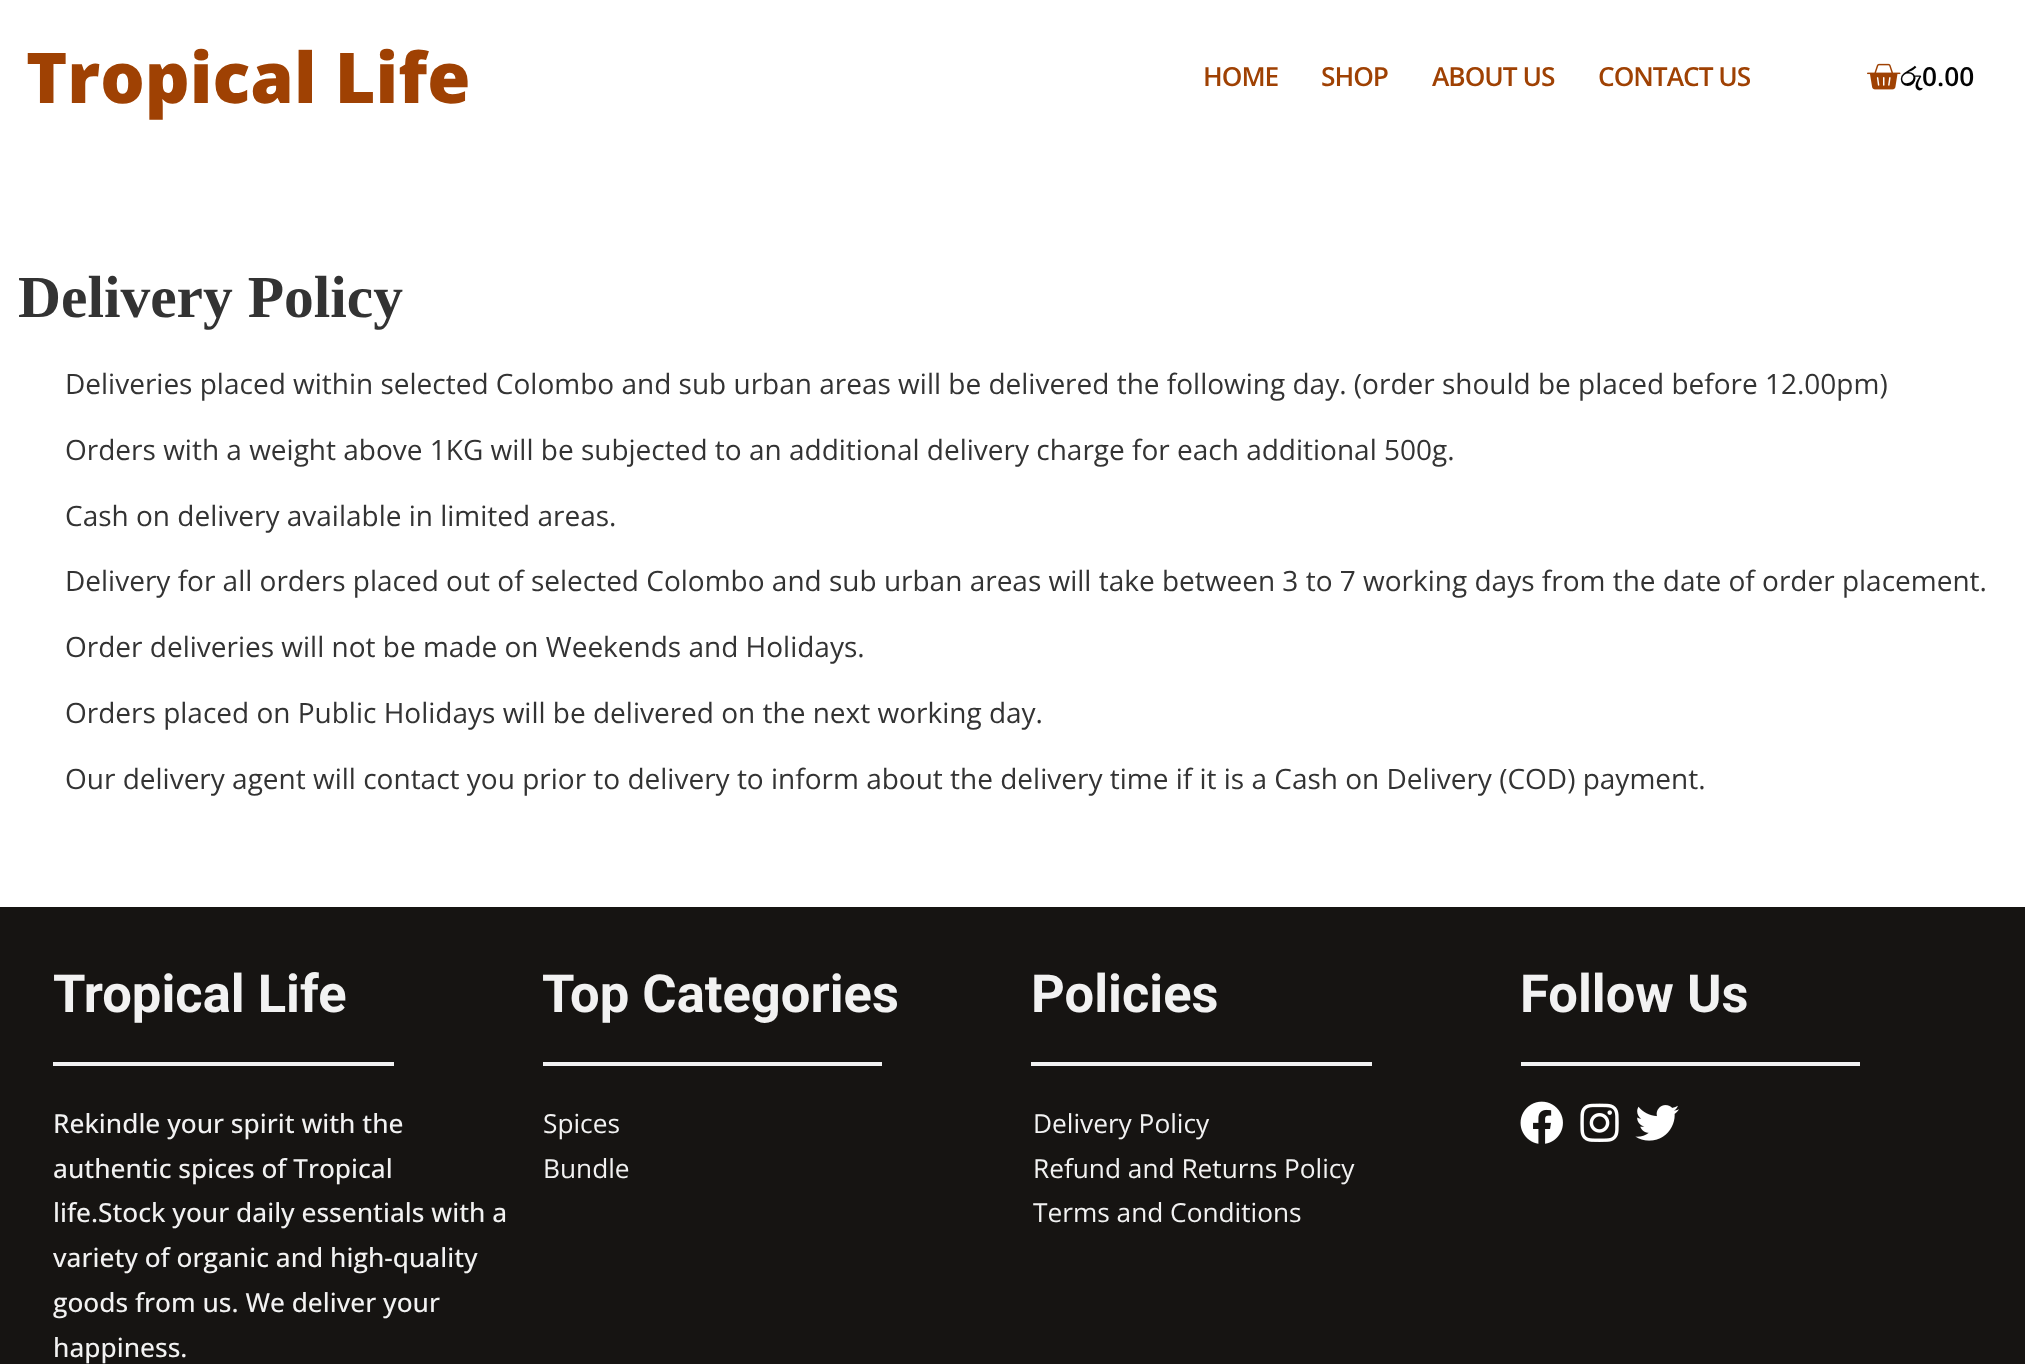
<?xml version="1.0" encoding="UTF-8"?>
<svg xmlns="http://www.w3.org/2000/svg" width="2025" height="1364">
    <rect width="100%" height="100%" fill="#FFFFFF"/>
    <text x="26" y="103" font-family="Open Sans" font-size="70" font-weight="800" fill="#9F4103">Tropical Life</text>
    <text x="1203" y="86" font-family="Open Sans" font-size="26.25" font-weight="600" letter-spacing="-1" fill="#9F4103">HOME</text>
    <text x="1321" y="86" font-family="Open Sans" font-size="26.25" font-weight="600" letter-spacing="-1" fill="#9F4103">SHOP</text>
    <text x="1432" y="86" font-family="Open Sans" font-size="26.25" font-weight="600" letter-spacing="-1" fill="#9F4103">ABOUT US</text>
    <text x="1598" y="86" font-family="Open Sans" font-size="26.25" font-weight="600" letter-spacing="-1" fill="#9F4103">CONTACT US</text>
    <text x="1900" y="86" font-family="FreeSerif" font-size="26.25" font-weight="700" fill="#030303">රු</text>
    <image x="1867" y="63" width="34" height="27" href="img_01.png"/>
    <text x="1922" y="86" font-family="Open Sans" font-size="26.25" font-weight="600" fill="#030303">0.00</text>
    <text x="18" y="317" font-family="Liberation Serif" font-size="59.5" font-weight="700" fill="#333333">Delivery Policy</text>
    <text x="65" y="394" font-family="Open Sans" font-size="28" fill="#333333">Deliveries placed within selected Colombo and sub urban areas will be delivered the following day. (order should be placed before 12.00pm)</text>
    <text x="65" y="460" font-family="Open Sans" font-size="28" fill="#333333">Orders with a weight above 1KG will be subjected to an additional delivery charge for each additional 500g.</text>
    <text x="65" y="526" font-family="Open Sans" font-size="28" fill="#333333">Cash on delivery available in limited areas.</text>
    <text x="65" y="591" font-family="Open Sans" font-size="28" fill="#333333">Delivery for all orders placed out of selected Colombo and sub urban areas will take between 3 to 7 working days from the date of order placement.</text>
    <text x="65" y="657" font-family="Open Sans" font-size="28" fill="#333333">Order deliveries will not be made on Weekends and Holidays.</text>
    <text x="65" y="723" font-family="Open Sans" font-size="28" fill="#333333">Orders placed on Public Holidays will be delivered on the next working day.</text>
    <text x="65" y="789" font-family="Open Sans" font-size="28" fill="#333333">Our delivery agent will contact you prior to delivery to inform about the delivery time if it is a Cash on Delivery (COD) payment.</text>
    <rect x="0" y="907" width="2025" height="457" fill="#161412"/>
    <text x="53" y="1012" font-family="Roboto" font-size="52.5" font-weight="700" fill="#F2F2F2">Tropical Life</text>
    <rect x="53" y="1062" width="341" height="4" fill="#F2F2F2"/>
    <text font-family="Open Sans" font-size="26.25" font-weight="500" fill="#F2F2F2">
        <tspan x="53" y="1133">Rekindle your spirit with the</tspan>
        <tspan x="53" y="1178">authentic spices of Tropical</tspan>
        <tspan x="53" y="1222">life.Stock your daily essentials with a</tspan>
        <tspan x="53" y="1267">variety of organic and high-quality</tspan>
        <tspan x="53" y="1312">goods from us. We deliver your</tspan>
        <tspan x="53" y="1357">happiness.</tspan>
    </text>
    <text x="542" y="1012" font-family="Roboto" font-size="52.5" font-weight="700" fill="#F2F2F2">Top Categories</text>
    <rect x="543" y="1062" width="339" height="4" fill="#F2F2F2"/>
    <text font-family="Open Sans" font-size="26.25" fill="#F2F2F2">
        <tspan x="543" y="1133">Spices</tspan>
        <tspan x="543" y="1178">Bundle</tspan>
    </text>
    <text x="1031" y="1012" font-family="Roboto" font-size="52.5" font-weight="700" fill="#F2F2F2">Policies</text>
    <rect x="1031" y="1062" width="341" height="4" fill="#F2F2F2"/>
    <text font-family="Open Sans" font-size="26.25" fill="#F2F2F2">
        <tspan x="1033" y="1133">Delivery Policy</tspan>
        <tspan x="1033" y="1178">Refund and Returns Policy</tspan>
        <tspan x="1033" y="1222">Terms and Conditions</tspan>
    </text>
    <text x="1520" y="1012" font-family="Roboto" font-size="52.5" font-weight="700" fill="#F2F2F2">Follow Us</text>
    <rect x="1521" y="1062" width="339" height="4" fill="#F2F2F2"/>
    <image x="1520" y="1101" width="43" height="43" href="img_02.png"/>
    <image x="1580" y="1103" width="39" height="39" href="img_03.png"/>
    <image x="1635" y="1105" width="44" height="36" href="img_04.png"/>
</svg>
